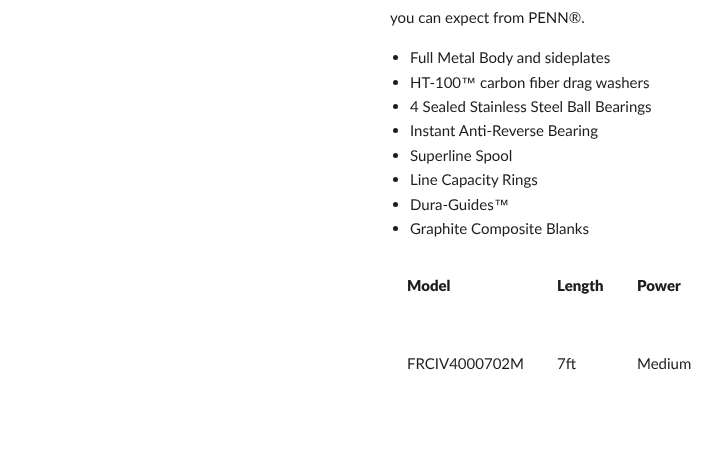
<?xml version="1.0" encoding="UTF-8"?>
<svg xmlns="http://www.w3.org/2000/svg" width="725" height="459">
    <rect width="100%" height="100%" fill="#FFFFFF"/>
    <text x="390" y="23" font-family="Lato" font-size="15" fill="#1D1D1D">you can expect from PENN®.</text>
    <circle cx="395.5" cy="57.5" r="2.5" fill="#1D1D1D"/>
    <text x="410" y="63" font-family="Lato" font-size="15" fill="#1D1D1D">Full Metal Body and sideplates</text>
    <circle cx="395.5" cy="82.5" r="2.5" fill="#1D1D1D"/>
    <text x="410" y="88" font-family="Lato" font-size="15" fill="#1D1D1D">HT-100</text>
    <text x="461" y="88" font-family="Liberation Sans" font-size="15" fill="#1D1D1D">™</text>
    <text x="480" y="88" font-family="Lato" font-size="15" fill="#1D1D1D">carbon fiber drag washers</text>
    <circle cx="395.5" cy="106.5" r="2.5" fill="#1D1D1D"/>
    <text x="410" y="112" font-family="Lato" font-size="15" fill="#1D1D1D">4 Sealed Stainless Steel Ball Bearings</text>
    <circle cx="395.5" cy="130.5" r="2.5" fill="#1D1D1D"/>
    <text x="410" y="136" font-family="Lato" font-size="15" fill="#1D1D1D">Instant Anti-Reverse Bearing</text>
    <circle cx="395.5" cy="155.5" r="2.5" fill="#1D1D1D"/>
    <text x="410" y="161" font-family="Lato" font-size="15" fill="#1D1D1D">Superline Spool</text>
    <circle cx="395.5" cy="179.5" r="2.5" fill="#1D1D1D"/>
    <text x="410" y="185" font-family="Lato" font-size="15" fill="#1D1D1D">Line Capacity Rings</text>
    <circle cx="395.5" cy="204.5" r="2.5" fill="#1D1D1D"/>
    <text x="410" y="210" font-family="Lato" font-size="15" fill="#1D1D1D">Dura-Guides</text>
    <text x="494" y="210" font-family="Liberation Sans" font-size="15" fill="#1D1D1D">™</text>
    <circle cx="395.5" cy="228.5" r="2.5" fill="#1D1D1D"/>
    <text x="410" y="234" font-family="Lato" font-size="15" fill="#1D1D1D">Graphite Composite Blanks</text>
    <text x="407" y="291" font-family="Lato" font-size="15" font-weight="800" fill="#1D1D1D">Model</text>
    <text x="557" y="291" font-family="Lato" font-size="15" font-weight="800" fill="#1D1D1D">Length</text>
    <text x="637" y="291" font-family="Lato" font-size="15" font-weight="800" fill="#1D1D1D">Power</text>
    <text x="407" y="369" font-family="Lato" font-size="15" fill="#1D1D1D">FRCIV4000702M</text>
    <text x="557" y="369" font-family="Lato" font-size="15" fill="#1D1D1D">7ft</text>
    <text x="637" y="369" font-family="Lato" font-size="15" fill="#1D1D1D">Medium</text>
</svg>
